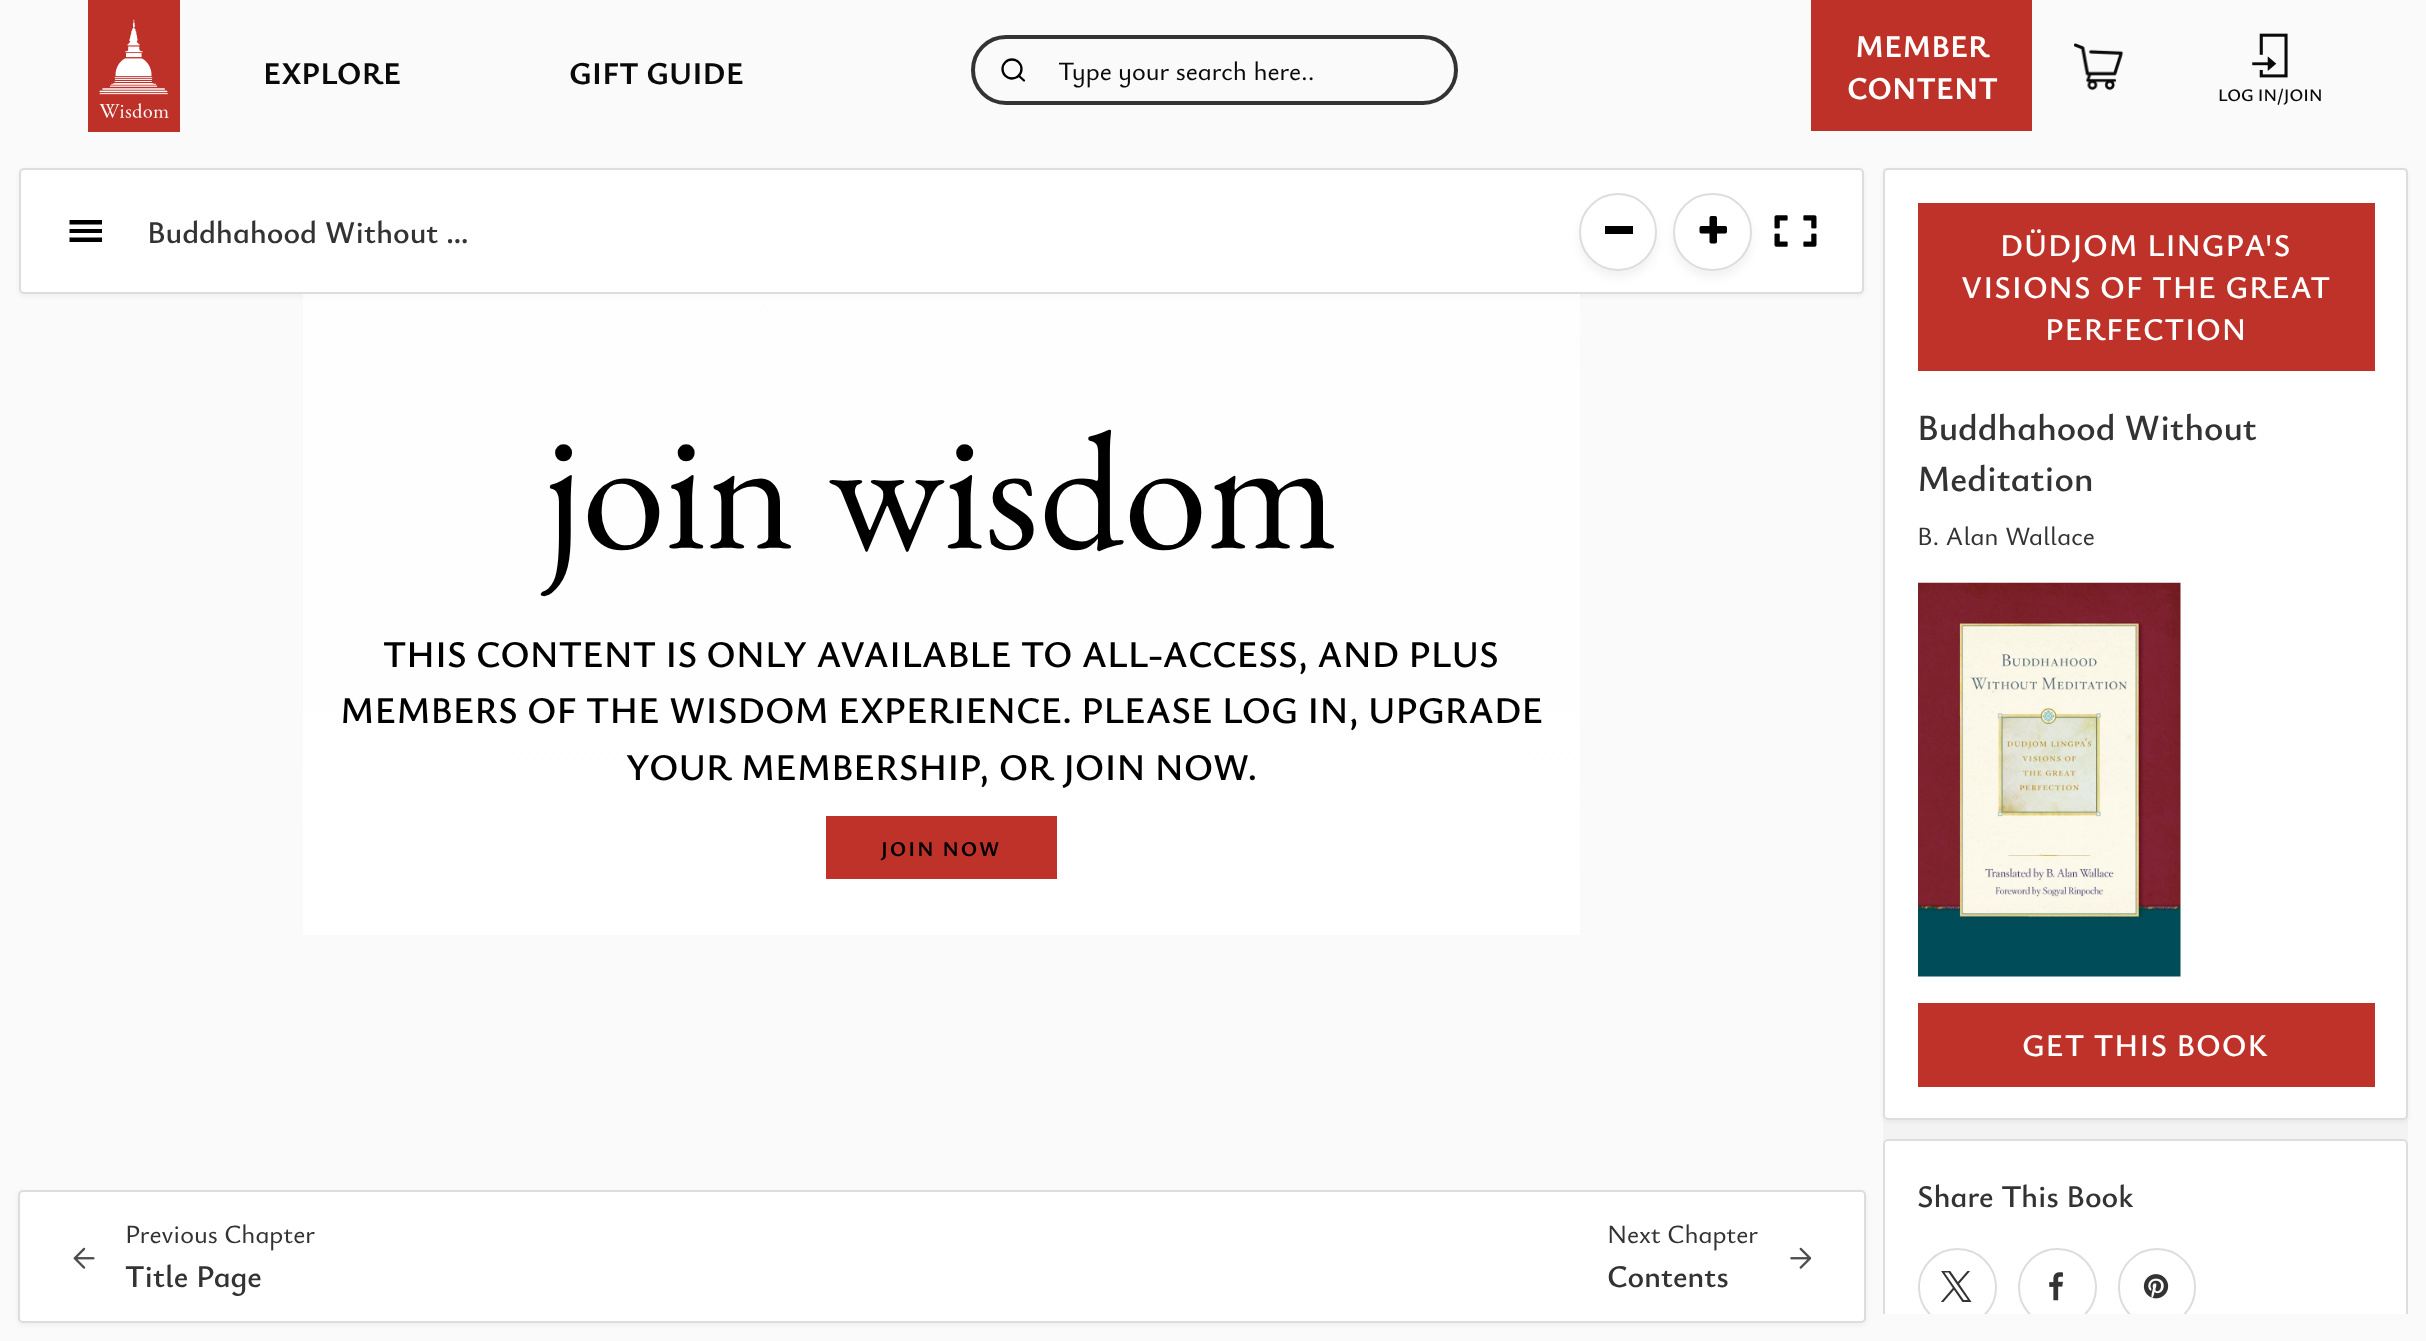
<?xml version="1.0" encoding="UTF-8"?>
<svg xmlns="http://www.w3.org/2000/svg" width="2426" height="1341">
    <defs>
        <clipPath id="clip1"><rect x="1059" y="53" width="325" height="35"/></clipPath>
        <filter id="blur1" x="-50%" y="-200%" width="200%" height="500%"><feGaussianBlur stdDeviation="2.5"/></filter>
        <filter id="blur2" x="-50%" y="-200%" width="200%" height="500%"><feGaussianBlur stdDeviation="5"/></filter>
        <linearGradient id="g1" gradientUnits="userSpaceOnUse" x1="942" y1="935" x2="942" y2="-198"><stop offset="0" stop-color="#FFFFFF"/><stop offset="0.75" stop-color="#FFFFFF" stop-opacity="0.62"/><stop offset="1" stop-color="#FFFFFF" stop-opacity="0"/></linearGradient>
        <clipPath id="clip2"><rect x="1883" y="168" width="525" height="1146"/></clipPath>
    </defs>
    <rect width="100%" height="100%" fill="#FAFAFA"/>
    <image x="88" y="0" width="92" height="132" href="img_01.png"/>
    <text x="263" y="84" font-family="Ysabeau Infant" font-size="31.5" font-weight="700" fill="#0A0A0A">EXPLORE</text>
    <text x="569" y="84" font-family="Ysabeau Infant" font-size="31.5" font-weight="700" fill="#0A0A0A">GIFT GUIDE</text>
    <rect x="973" y="37" width="483" height="66" rx="33" fill="none" stroke="#333333" stroke-width="4"/>
    <circle cx="1012" cy="69" r="9.5" fill="none" stroke="#000000" stroke-width="2.3"/>
    <path d="M 1024 80.5 L 1018.5 75.5" fill="none" stroke="#000000" stroke-width="2.3" stroke-linecap="round" stroke-linejoin="round"/>
    <g clip-path="url(#clip1)">
        <text x="1058" y="80" font-family="Ysabeau Infant" font-size="26.25" font-weight="500" fill="#0A0A0A">Type your search here..</text>
    </g>
    <rect x="1811" y="0" width="221" height="131" fill="#BE3129"/>
    <text x="1855" y="57" font-family="Ysabeau Infant" font-size="31.5" font-weight="700" fill="#FFFFFF">MEMBER</text>
    <text x="1847" y="99" font-family="Ysabeau Infant" font-size="31.5" font-weight="700" fill="#FFFFFF">CONTENT</text>
    <image x="2074" y="43" width="49" height="48" href="img_02.png"/>
    <image x="2252" y="33" width="36" height="45" href="img_03.png"/>
    <text x="2218" y="101" font-family="Ysabeau Infant" font-size="17.5" font-weight="600" fill="#0A0A0A">LOG IN/JOIN</text>
    <rect x="19" y="170" width="1845" height="126" rx="5" fill="#000000" fill-opacity="0.05" filter="url(#blur1)"/>
    <rect x="20" y="169" width="1843" height="124" rx="4" fill="#FFFFFF" stroke="#DDDDDD" stroke-width="2"/>
    <path d="M 69.5 220 H 102 V 224.5 H 69.5 Z M 69.5 229 H 102 V 233 H 69.5 Z M 69.5 237.5 H 102 V 242 H 69.5 Z" fill="#000000"/>
    <text x="147" y="243" font-family="Ysabeau Infant" font-size="31.5" font-weight="600" fill="#333333">Buddhahood Without …</text>
    <rect x="1579" y="200" width="78" height="78" rx="39" fill="#000000" fill-opacity="0.05" filter="url(#blur2)"/>
    <circle cx="1618" cy="232" r="38" fill="#FFFFFF" stroke="#DDDDDD" stroke-width="2"/>
    <rect x="1605" y="226" width="28" height="8" fill="#000000"/>
    <rect x="1673" y="200" width="79" height="78" rx="39" fill="#000000" fill-opacity="0.05" filter="url(#blur2)"/>
    <rect x="1674" y="194" width="77" height="76" rx="38" fill="#FFFFFF" stroke="#DDDDDD" stroke-width="2"/>
    <image x="1699" y="216" width="28" height="28" href="img_04.png"/>
    <image x="1774" y="215" width="43" height="32" href="img_05.png"/>
    <rect x="303" y="294" width="1277" height="641" fill="url(#g1)"/>
    <text x="544" y="548" font-family="EB Garamond" font-size="168" fill="#000000">join wisdom</text>
    <text x="383" y="667" font-family="Ysabeau Infant" font-size="37.5" font-weight="600" fill="#000000">THIS CONTENT IS ONLY AVAILABLE TO ALL-ACCESS, AND PLUS</text>
    <text x="340" y="723" font-family="Ysabeau Infant" font-size="37.5" font-weight="600" fill="#000000">MEMBERS OF THE WISDOM EXPERIENCE. PLEASE LOG IN, UPGRADE</text>
    <text x="626" y="780" font-family="Ysabeau Infant" font-size="37.5" font-weight="600" fill="#000000">YOUR MEMBERSHIP, OR JOIN NOW.</text>
    <rect x="826" y="816" width="231" height="63" fill="#BE322A"/>
    <text x="881" y="856" font-family="Ysabeau Infant" font-size="21" font-weight="700" letter-spacing="2" fill="#000000">JOIN NOW</text>
    <rect x="18" y="1192" width="1848" height="133" rx="5" fill="#000000" fill-opacity="0.05" filter="url(#blur1)"/>
    <rect x="19" y="1191" width="1846" height="131" rx="4" fill="#FFFFFF" stroke="#DDDDDD" stroke-width="2"/>
    <image x="73" y="1247" width="22" height="22" href="img_06.png"/>
    <text x="125" y="1243" font-family="Ysabeau Infant" font-size="26.25" font-weight="500" fill="#333333">Previous Chapter</text>
    <text x="125" y="1287" font-family="Ysabeau Infant" font-size="31.5" font-weight="600" fill="#333333">Title Page</text>
    <text x="1607" y="1243" font-family="Ysabeau Infant" font-size="26.25" font-weight="500" fill="#333333">Next Chapter</text>
    <text x="1607" y="1287" font-family="Ysabeau Infant" font-size="31.5" font-weight="600" fill="#333333">Contents</text>
    <image x="1790" y="1247" width="22" height="22" href="img_07.png"/>
    <rect x="1883" y="168" width="525" height="976" fill="#F3F3F3"/>
    <rect x="1883" y="170" width="525" height="952" rx="5" fill="#000000" fill-opacity="0.05" filter="url(#blur1)"/>
    <rect x="1884" y="169" width="523" height="950" rx="4" fill="#FFFFFF" stroke="#DDDDDD" stroke-width="2"/>
    <rect x="1918" y="203" width="457" height="168" fill="#BE322A"/>
    <text x="2000" y="256" font-family="Ysabeau Infant" font-size="31.5" font-weight="600" letter-spacing="0.9" fill="#FFFFFF">DÜDJOM LINGPA'S</text>
    <text x="1961" y="298" font-family="Ysabeau Infant" font-size="31.5" font-weight="600" letter-spacing="0.9" fill="#FFFFFF">VISIONS OF THE GREAT</text>
    <text x="2045" y="340" font-family="Ysabeau Infant" font-size="31.5" font-weight="600" letter-spacing="0.9" fill="#FFFFFF">PERFECTION</text>
    <text font-family="Ysabeau Infant" font-size="36.75" font-weight="600" fill="#333333">
        <tspan x="1917" y="440">Buddhahood Without</tspan>
        <tspan x="1917" y="491">Meditation</tspan>
    </text>
    <text x="1917" y="545" font-family="Ysabeau Infant" font-size="26.25" font-weight="500" fill="#333333">B. Alan Wallace</text>
    <image x="1918" y="582" width="263" height="395" href="img_08.png"/>
    <rect x="1918" y="1003" width="457" height="84" fill="#BF322A"/>
    <text x="2022" y="1056" font-family="Ysabeau Infant" font-size="31.5" font-weight="600" letter-spacing="0.9" fill="#FFFFFF">GET THIS BOOK</text>
    <path d="M 1888 1139 H 2403 C 2406 1139 2408 1141 2408 1144 V 1314 H 1883 V 1144 C 1883 1141 1885 1139 1888 1139 Z" fill="#FFFFFF"/>
    <g clip-path="url(#clip2)">
        <rect x="1884" y="1140" width="523" height="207" rx="4" fill="none" stroke="#DDDDDD" stroke-width="2"/>
    </g>
    <text x="1917" y="1207" font-family="Ysabeau Infant" font-size="31.5" font-weight="600" fill="#333333">Share This Book</text>
    <g clip-path="url(#clip2)">
        <circle cx="1957.5" cy="1287.5" r="38.5" fill="none" stroke="#DDDDDD" stroke-width="2"/>
    </g>
    <image x="1941" y="1271" width="31" height="31" href="img_09.png"/>
    <g clip-path="url(#clip2)">
        <circle cx="2057.5" cy="1287.5" r="38.5" fill="none" stroke="#DDDDDD" stroke-width="2"/>
    </g>
    <image x="2049" y="1272" width="14" height="29" href="img_10.png"/>
    <g clip-path="url(#clip2)">
        <rect x="2119" y="1249" width="76" height="77" rx="38" fill="none" stroke="#DDDDDD" stroke-width="2"/>
    </g>
    <image x="2143" y="1274" width="26" height="25" href="img_11.png"/>
</svg>
